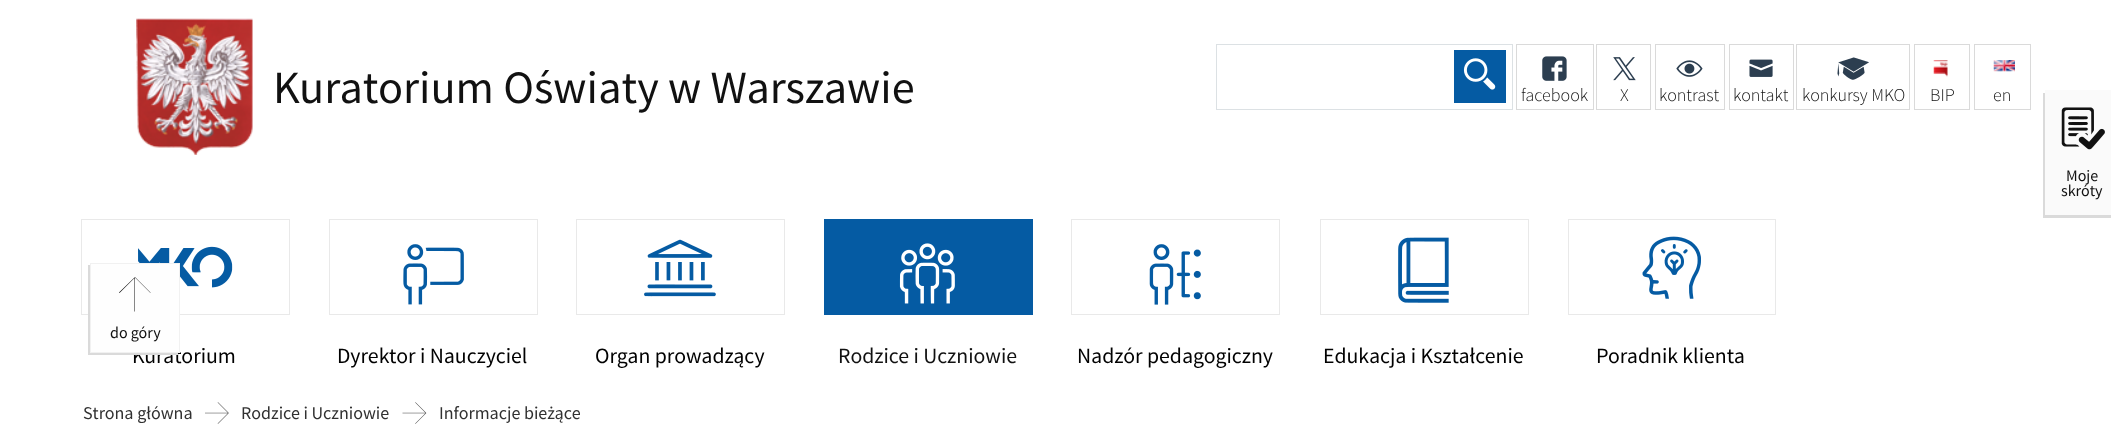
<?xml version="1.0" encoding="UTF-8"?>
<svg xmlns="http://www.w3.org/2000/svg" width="2111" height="439">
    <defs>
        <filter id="blur1" x="-50%" y="-200%" width="200%" height="500%"><feGaussianBlur stdDeviation="0.5"/></filter>
    </defs>
    <rect width="100%" height="100%" fill="#FFFFFF"/>
    <image x="136" y="18" width="117" height="137" href="img_01.png"/>
    <text x="273" y="103" font-family="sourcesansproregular" font-size="46.25" fill="#111111">Kuratorium Oświaty w Warszawie</text>
    <rect x="1216.5" y="44.5" width="296" height="65" fill="none" stroke="#DCE1E4"/>
    <rect x="1454" y="50" width="52" height="53" fill="#055BA3"/>
    <image x="1463" y="58" width="33" height="32" href="img_02.png"/>
    <rect x="1516.5" y="44.5" width="77" height="65" fill="none" stroke="#DADADA"/>
    <image x="1542" y="56" width="25" height="25" href="img_03.png"/>
    <text x="1521" y="101" font-family="Source Sans Pro" font-size="18" font-weight="300" fill="#111111">facebook</text>
    <rect x="1596.5" y="44.5" width="54" height="65" fill="none" stroke="#DADADA"/>
    <image x="1613" y="57" width="23" height="24" href="img_04.png"/>
    <text x="1620" y="101" font-family="Source Sans Pro" font-size="18" font-weight="300" fill="#111111">X</text>
    <rect x="1655.5" y="44.5" width="69" height="65" fill="none" stroke="#DADADA"/>
    <image x="1676" y="60" width="27" height="17" href="img_05.png"/>
    <text x="1659" y="101" font-family="Source Sans Pro" font-size="18" font-weight="300" fill="#111111">kontrast</text>
    <rect x="1729.5" y="44.5" width="64" height="65" fill="none" stroke="#DADADA"/>
    <image x="1749" y="59" width="24" height="18" href="img_06.png"/>
    <text x="1733" y="101" font-family="Source Sans Pro" font-size="18" font-weight="300" fill="#111111">kontakt</text>
    <rect x="1796.5" y="44.5" width="113" height="65" fill="none" stroke="#DADADA"/>
    <image x="1837" y="57" width="32" height="23" href="img_07.png"/>
    <text x="1802" y="101" font-family="Source Sans Pro" font-size="18" font-weight="300" fill="#111111">konkursy MKO</text>
    <rect x="1914.5" y="44.5" width="55" height="65" fill="none" stroke="#DADADA"/>
    <image x="1933" y="60" width="15" height="17" href="img_08.png"/>
    <text x="1930" y="101" font-family="Source Sans Pro" font-size="18" font-weight="300" fill="#111111">BIP</text>
    <rect x="1974.5" y="44.5" width="56" height="65" fill="none" stroke="#DADADA"/>
    <image x="1993" y="60" width="22" height="12" href="img_09.png"/>
    <text x="1993" y="101" font-family="Source Sans Pro" font-size="18" font-weight="300" fill="#111111">en</text>
    <rect x="81.5" y="219.5" width="208" height="95" fill="none" stroke="#E9E9E9"/>
    <image x="138" y="246" width="95" height="42" href="img_10.png"/>
    <text x="132" y="363" font-family="sourcesansproregular" font-size="21.75" fill="#010101">Kuratorium</text>
    <rect x="329.5" y="219.5" width="208" height="95" fill="none" stroke="#E9E9E9"/>
    <image x="403" y="244" width="61" height="61" href="img_11.png"/>
    <text x="337" y="363" font-family="sourcesansproregular" font-size="21.75" fill="#010101">Dyrektor i Nauczyciel</text>
    <rect x="576.5" y="219.5" width="208" height="95" fill="none" stroke="#E9E9E9"/>
    <image x="644" y="239" width="72" height="58" href="img_12.png"/>
    <text x="595" y="363" font-family="sourcesansproregular" font-size="21.75" fill="#010101">Organ prowadzący</text>
    <rect x="824" y="219" width="209" height="96" fill="#055BA3"/>
    <image x="899" y="243" width="56" height="61" href="img_13.png"/>
    <text x="838" y="363" font-family="sourcesansproregular" font-size="21.75" fill="#111111">Rodzice i Uczniowie</text>
    <rect x="1071.5" y="219.5" width="208" height="95" fill="none" stroke="#E9E9E9"/>
    <image x="1149" y="244" width="52" height="61" href="img_14.png"/>
    <text x="1077" y="363" font-family="sourcesansproregular" font-size="21.75" fill="#010101">Nadzór pedagogiczny</text>
    <rect x="1320.5" y="219.5" width="208" height="95" fill="none" stroke="#E9E9E9"/>
    <image x="1398" y="237" width="51" height="66" href="img_15.png"/>
    <text x="1323" y="363" font-family="sourcesansproregular" font-size="21.75" fill="#010101">Edukacja i Kształcenie</text>
    <rect x="1568.5" y="219.5" width="207" height="95" fill="none" stroke="#E9E9E9"/>
    <image x="1642" y="236" width="59" height="63" href="img_16.png"/>
    <text x="1596" y="363" font-family="sourcesansproregular" font-size="21.75" fill="#010101">Poradnik klienta</text>
    <text x="83" y="419" font-family="sourcesansproregular" font-size="18" fill="#313131">Strona główna</text>
    <image x="205" y="402" width="24" height="22" href="img_17.png"/>
    <text x="241" y="419" font-family="sourcesansproregular" font-size="18" fill="#313131">Rodzice i Uczniowie</text>
    <image x="402" y="402" width="25" height="22" href="img_18.png"/>
    <text x="439" y="419" font-family="sourcesansproregular" font-size="18" fill="#313131">Informacje bieżące</text>
    <rect x="2043" y="93" width="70" height="125" fill="#DADADA" filter="url(#blur1)"/>
    <rect x="2045" y="90" width="66" height="125" fill="#FAFAFA"/>
    <image x="2061" y="107" width="44" height="43" href="img_19.png"/>
    <text x="2066" y="181" font-family="sourcesansproregular" font-size="16" fill="#111111">Moje</text>
    <text x="2061" y="196" font-family="sourcesansproregular" font-size="16" fill="#111111">skróty</text>
    <rect x="88" y="265" width="90" height="90" fill="#DADADA" filter="url(#blur1)"/>
    <rect x="90.5" y="263.5" width="89" height="89" fill="#FEFEFE" stroke="#F1F1F1"/>
    <path d="M 135 277 L 119 292.5 L 119.5 293 L 135 277.5 L 150.5 293 V 292.5 Z M 135 278 V 311.5 H 134.5 V 278 Z" fill="#111111"/>
    <text x="110" y="338" font-family="sourcesansproregular" font-size="16" fill="#111111">do góry</text>
</svg>
